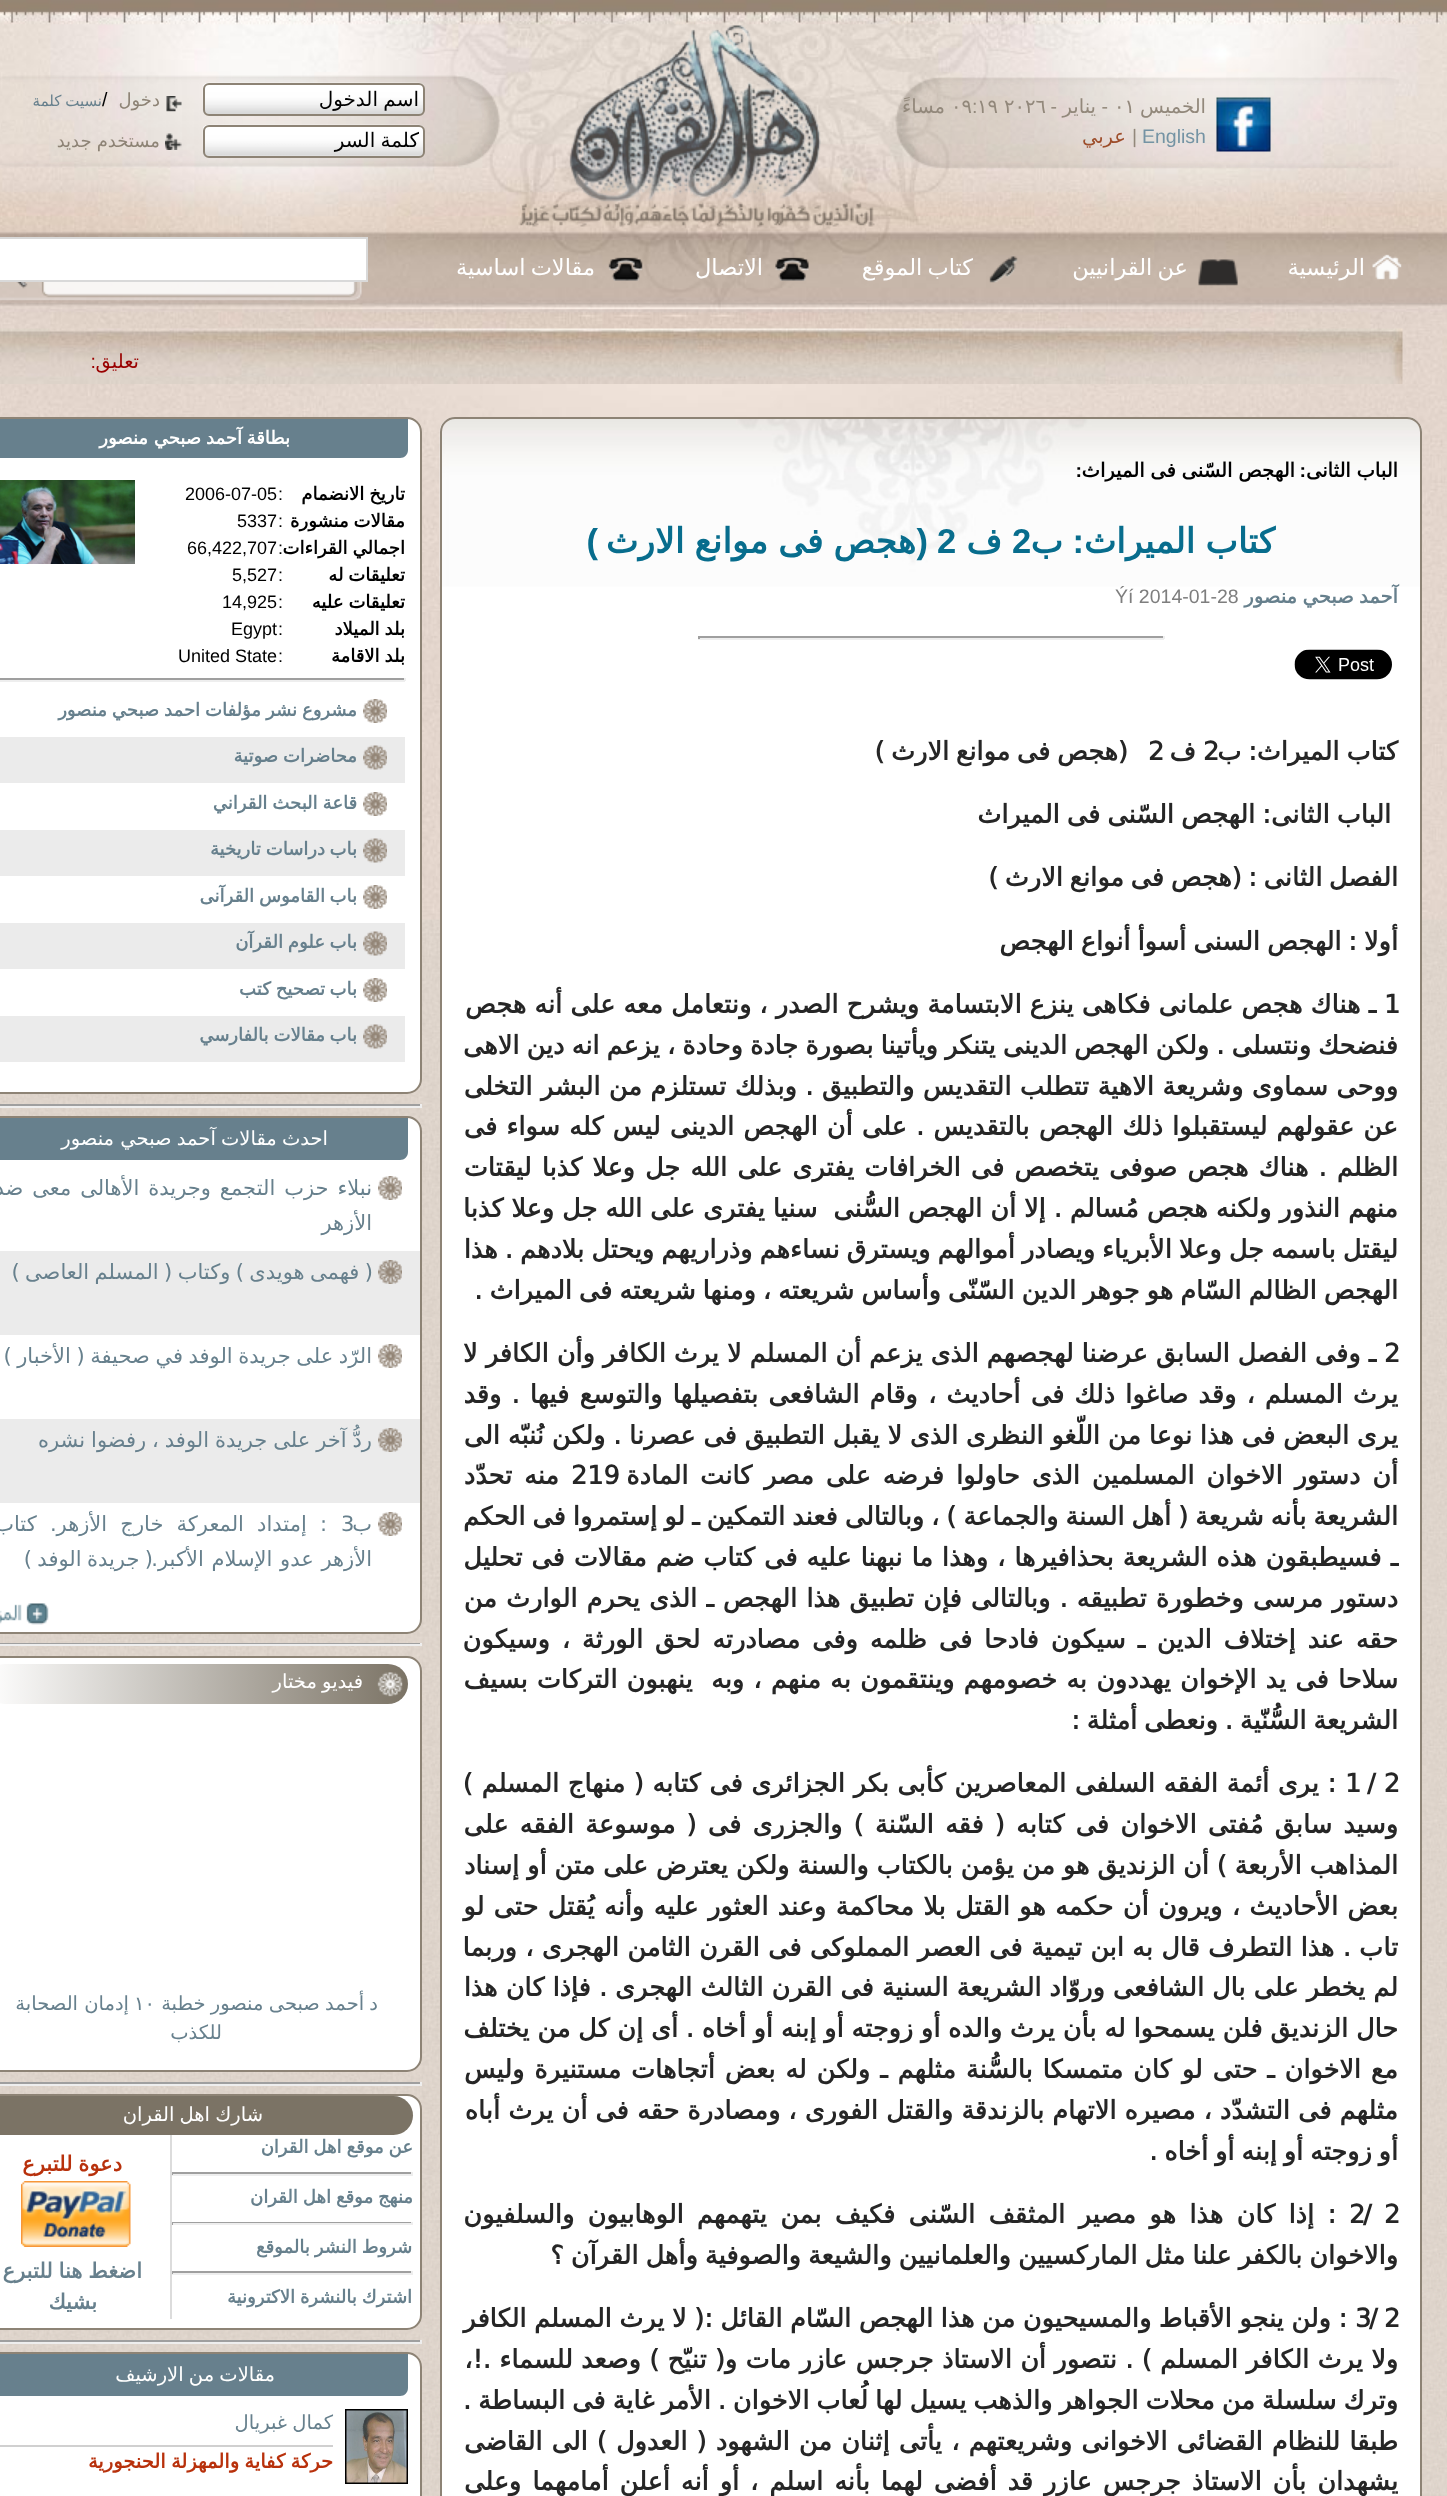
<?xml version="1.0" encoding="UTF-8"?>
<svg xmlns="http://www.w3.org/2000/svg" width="1447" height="2496">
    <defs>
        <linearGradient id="g1" gradientUnits="userSpaceOnUse" x1="-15" y1="1684" x2="408" y2="1684"><stop offset="0" stop-color="#FFFFFF"/><stop offset="1" stop-color="#7B7365"/></linearGradient>
    </defs>
    <rect width="100%" height="100%" fill="#FFFFFF"/>
    <image x="0" y="919" width="1447" height="1577" href="img_01.png"/>
    <image x="0" y="0" width="1447" height="920" href="img_02.png"/>
    <image x="895" y="77" width="504" height="92" href="img_03.png"/>
    <image x="1216" y="97" width="55" height="55" href="img_04.png"/>
    <text x="1206" y="113" font-family="DejaVu Sans" font-size="19.5" direction="rtl" fill="#92887B">الخميس</text>
    <text x="1114" y="113" font-family="DejaVu Sans" font-size="19.5" fill="#92887B">٠١</text>
    <text x="1108" y="113" font-family="Liberation Sans" font-size="19.5" direction="rtl" fill="#92887B">-</text>
    <text x="1096" y="113" font-family="DejaVu Sans" font-size="19.5" direction="rtl" fill="#92887B">يناير</text>
    <text x="1057" y="113" font-family="Liberation Sans" font-size="19.5" direction="rtl" fill="#92887B">-</text>
    <text x="1004" y="113" font-family="DejaVu Sans" font-size="19.5" fill="#92887B">٢٠٢٦</text>
    <text x="977" y="113" font-family="DejaVu Sans" font-size="19.5" fill="#92887B">١٩</text>
    <text x="972" y="113" font-family="Liberation Sans" font-size="19.5" fill="#92887B">:</text>
    <text x="951" y="113" font-family="DejaVu Sans" font-size="19.5" fill="#92887B">٠٩</text>
    <text x="945" y="113" font-family="DejaVu Sans" font-size="19.5" direction="rtl" fill="#92887B">مساءً</text>
    <text x="1142" y="143" font-family="Liberation Sans" font-size="19.5" fill="#7493A4">English</text>
    <text x="1132" y="143" font-family="Liberation Sans" font-size="19.5" fill="#92887B">|</text>
    <text x="1126" y="143" font-family="DejaVu Sans" font-size="19.5" direction="rtl" fill="#9D4D2A">عربي</text>
    <image x="519" y="25" width="356" height="202" href="img_05.png"/>
    <image x="0" y="75" width="500" height="92" href="img_06.png"/>
    <image x="202" y="82" width="223" height="32" href="img_07.png"/>
    <rect x="204" y="84" width="220" height="31" rx="5" fill="none" stroke="#8D8375" stroke-width="2"/>
    <text x="419" y="106" word-spacing="-1" font-family="DejaVu Sans" font-size="20" direction="rtl" fill="#000000">اسم الدخول</text>
    <image x="166" y="96" width="16" height="16" href="img_08.png"/>
    <text x="160" y="106" font-family="DejaVu Sans" font-size="18" direction="rtl" fill="#8D8375">دخول</text>
    <text x="102" y="106" font-family="Liberation Sans" font-size="19.5" fill="#000000">/</text>
    <text x="102" y="106" word-spacing="-1" font-family="DejaVu Sans" font-size="15" direction="rtl" fill="#67808D">نسيت كلمة</text>
    <image x="202" y="124" width="223" height="33" href="img_09.png"/>
    <rect x="204" y="126" width="220" height="31" rx="5" fill="none" stroke="#8D8375" stroke-width="2"/>
    <text x="419" y="147" word-spacing="-1" font-family="DejaVu Sans" font-size="20" direction="rtl" fill="#000000">كلمة السر</text>
    <image x="165" y="133" width="17" height="17" href="img_10.png"/>
    <text x="160" y="147" word-spacing="-0.75" font-family="DejaVu Sans" font-size="18" direction="rtl" fill="#8D8375">مستخدم جديد</text>
    <image x="1372" y="254" width="30" height="26" href="img_11.png"/>
    <text x="1365" y="275" font-family="DejaVu Sans" font-size="22.5" direction="rtl" fill="#FFFFFF">الرئيسية</text>
    <image x="1198" y="259" width="40" height="27" href="img_12.png"/>
    <text x="1188" y="275" word-spacing="-2" font-family="DejaVu Sans" font-size="22.5" direction="rtl" fill="#FFFFFF">عن القرانيين</text>
    <image x="989" y="256" width="29" height="27" href="img_13.png"/>
    <text x="973" y="275" word-spacing="-2" font-family="DejaVu Sans" font-size="22.5" direction="rtl" fill="#FFFFFF">كتاب الموقع</text>
    <image x="775" y="257" width="34" height="24" href="img_14.png"/>
    <text x="763" y="275" font-family="DejaVu Sans" font-size="22.5" direction="rtl" fill="#FFFFFF">الاتصال</text>
    <image x="608" y="257" width="35" height="24" href="img_15.png"/>
    <text x="595" y="275" word-spacing="-2" font-family="DejaVu Sans" font-size="22.5" direction="rtl" fill="#FFFFFF">مقالات اساسية</text>
    <image x="0" y="282" width="362" height="19" href="img_16.png"/>
    <rect x="-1" y="238" width="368" height="43" fill="#FFFFFF" stroke="#D9D9D9" stroke-width="2"/>
    <image x="0" y="328" width="1403" height="56" href="img_17.png"/>
    <text x="139" y="368" font-family="DejaVu Sans" font-size="19.5" direction="rtl" fill="#990000">تعليق</text>
    <text x="96" y="368" font-family="Liberation Sans" font-size="19.5" direction="rtl" fill="#990000">:</text>
    <rect x="440" y="417" width="982" height="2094" rx="15" fill="#FFFFFF"/>
    <image x="439" y="418" width="983" height="169" href="img_18.png"/>
    <rect x="441" y="418" width="980" height="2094" rx="14" fill="none" stroke="#8D8375" stroke-width="2"/>
    <text x="1398" y="477" word-spacing="-0.5" font-family="DejaVu Sans" font-size="19.5" font-weight="700" direction="rtl" fill="#000000">الباب الثانى</text>
    <text x="1306" y="477" font-family="Liberation Sans" font-size="19.5" font-weight="700" direction="rtl" fill="#000000">:</text>
    <text x="1295" y="477" word-spacing="-0.5" font-family="DejaVu Sans" font-size="19.5" font-weight="700" direction="rtl" fill="#000000">الهجص السّنى فى الميراث</text>
    <text x="1082" y="477" font-family="Liberation Sans" font-size="19.5" font-weight="700" direction="rtl" fill="#000000">:</text>
    <text x="1275" y="553" word-spacing="-1" font-family="DejaVu Sans" font-size="34.5" font-weight="700" direction="rtl" fill="#086D8D">كتاب الميراث</text>
    <text x="1084" y="553" font-family="Liberation Sans" font-size="34.5" font-weight="700" direction="rtl" fill="#086D8D">:</text>
    <text x="1063" y="553" font-family="DejaVu Sans" font-size="34.5" font-weight="700" direction="rtl" fill="#086D8D">ب</text>
    <text x="1012" y="553" font-family="Liberation Sans" font-size="34.5" font-weight="700" fill="#086D8D">2</text>
    <text x="1002" y="553" font-family="DejaVu Sans" font-size="34.5" font-weight="700" direction="rtl" fill="#086D8D">ف</text>
    <text x="937" y="553" font-family="Liberation Sans" font-size="34.5" font-weight="700" fill="#086D8D">2</text>
    <text x="928" y="553" font-family="Liberation Sans" font-size="34.5" font-weight="700" direction="rtl" fill="#086D8D">(</text>
    <text x="916" y="553" word-spacing="-1" font-family="DejaVu Sans" font-size="34.5" font-weight="700" direction="rtl" fill="#086D8D">هجص فى موانع الارث</text>
    <text x="598" y="553" font-family="Liberation Sans" font-size="34.5" font-weight="700" direction="rtl" fill="#086D8D">)</text>
    <text x="1398" y="603" word-spacing="-1" font-family="DejaVu Sans" font-size="19.5" font-weight="700" direction="rtl" fill="#67808D">آحمد صبحي</text>
    <text x="1297" y="603" font-family="DejaVu Sans" font-size="19.5" font-weight="700" direction="rtl" fill="#67808D">منصور</text>
    <text x="1115" y="603" font-family="Liberation Sans" font-size="19.5" fill="#7E7E7E">Ýí 2014-01-28</text>
    <rect x="698" y="636" width="466" height="2" fill="#9F9F9F"/>
    <rect x="1163" y="636" width="2" height="3" fill="#EEEEEE"/>
    <rect x="698" y="638" width="466" height="2" fill="#EEEEEE"/>
    <rect x="698" y="636" width="2" height="3" fill="#9F9F9F"/>
    <image x="1294" y="649" width="98" height="31" href="img_19.png"/>
    <text x="1398" y="760" word-spacing="-1" font-family="DejaVu Sans" font-size="25.5" font-weight="700" direction="rtl" fill="#262626">كتاب الميراث: ب</text>
    <text x="1203" y="760" font-family="DejaVu Sans" font-size="25.5" font-weight="700" fill="#262626">2</text>
    <text x="1196" y="760" font-family="DejaVu Sans" font-size="25.5" font-weight="700" direction="rtl" fill="#262626">ف</text>
    <text x="1148" y="760" font-family="DejaVu Sans" font-size="25.5" font-weight="700" fill="#262626">2</text>
    <text x="1128" y="760" word-spacing="-1.5" font-family="DejaVu Sans" font-size="25.5" font-weight="700" direction="rtl" fill="#262626">(هجص فى موانع الارث )</text>
    <text x="1391" y="823" word-spacing="-1" font-family="DejaVu Sans" font-size="25.5" font-weight="700" direction="rtl" fill="#262626">الباب الثانى: الهجص السّنى فى الميراث</text>
    <text x="1398" y="886" word-spacing="-1.5" font-family="DejaVu Sans" font-size="25.5" font-weight="700" direction="rtl" fill="#262626">الفصل الثانى : (هجص فى موانع الارث )</text>
    <text x="1398" y="950" word-spacing="-1" font-family="DejaVu Sans" font-size="25.5" font-weight="700" direction="rtl" fill="#262626">أولا : الهجص السنى أسوأ أنواع الهجص</text>
    <text x="1384" y="1013" font-family="DejaVu Sans" font-size="25.5" font-weight="700" fill="#262626">1</text>
    <text x="1376" y="1013" font-family="DejaVu Sans" font-size="25.5" font-weight="700" direction="rtl" fill="#262626">ـ هناك هجص علمانى فكاهى ينزع الابتسامة ويشرح الصدر ، ونتعامل معه على أنه هجص</text>
    <text font-family="DejaVu Sans" font-size="25.5" font-weight="700" direction="rtl" fill="#262626" xml:space="preserve"><tspan x="1398" y="1054" word-spacing="-1">فنضحك ونتسلى . ولكن الهجص الدينى يتنكر ويأتينا بصورة جادة وحادة ، يزعم انه دين الاهى</tspan><tspan x="1398" y="1095" word-spacing="0.4">ووحى سماوى وشريعة الاهية تتطلب التقديس والتطبيق . وبذلك تستلزم من البشر التخلى</tspan><tspan x="1398" y="1135" word-spacing="1.1">عن عقولهم ليستقبلوا ذلك الهجص بالتقديس . على أن الهجص الدينى ليس كله سواء فى</tspan><tspan x="1398" y="1176" word-spacing="2">الظلم . هناك هجص صوفى يتخصص فى الخرافات يفترى على الله جل وعلا كذبا ليقتات</tspan><tspan x="1398" y="1217" word-spacing="-0.1">منهم النذور ولكنه هجص مُسالم . إلا أن الهجص السُّنى  سنيا يفترى على الله جل وعلا كذبا</tspan><tspan x="1398" y="1258" word-spacing="-1">ليقتل باسمه جل وعلا الأبرياء ويصادر أموالهم ويسترق نساءهم وذراريهم ويحتل بلادهم . هذا</tspan><tspan x="1398" y="1299" word-spacing="-1.1">الهجص الظالم السّام هو جوهر الدين السّنّى وأساس شريعته ، ومنها شريعته فى الميراث .</tspan></text>
    <text x="1384" y="1362" font-family="DejaVu Sans" font-size="25.5" font-weight="700" fill="#262626">2</text>
    <text x="1376" y="1362" word-spacing="-0.1" font-family="DejaVu Sans" font-size="25.5" font-weight="700" direction="rtl" fill="#262626">ـ وفى الفصل السابق عرضنا لهجصهم الذى يزعم أن المسلم لا يرث الكافر وأن الكافر لا</text>
    <text font-family="DejaVu Sans" font-size="25.5" font-weight="700" direction="rtl" fill="#262626">
        <tspan x="1398" y="1403" word-spacing="2.1">يرث المسلم ، وقد صاغوا ذلك فى أحاديث ، وقام الشافعى بتفصيلها والتوسع فيها . وقد</tspan>
        <tspan x="1398" y="1444" word-spacing="-0.25">يرى البعض فى هذا نوعا من اللّغو النظرى الذى لا يقبل التطبيق فى عصرنا . ولكن نُنبّه الى</tspan>
        <tspan x="1398" y="1484" word-spacing="3.75">أن دستور الاخوان المسلمين الذى حاولوا فرضه على مصر كانت المادة</tspan>
    </text>
    <text x="571" y="1484" font-family="DejaVu Sans" font-size="25.5" font-weight="700" fill="#262626">219</text>
    <text x="559" y="1484" word-spacing="3.75" font-family="DejaVu Sans" font-size="25.5" font-weight="700" direction="rtl" fill="#262626">منه تحدّد</text>
    <text font-family="DejaVu Sans" font-size="25.5" font-weight="700" direction="rtl" fill="#262626" xml:space="preserve"><tspan x="1398" y="1525" word-spacing="-1.1">الشريعة بأنه شريعة ( أهل السنة والجماعة ) ، وبالتالى فعند التمكين ـ لو إستمروا فى الحكم</tspan><tspan x="1398" y="1566" word-spacing="0.9">ـ فسيطبقون هذه الشريعة بحذافيرها ، وهذا ما نبهنا عليه فى كتاب ضم مقالات فى تحليل</tspan><tspan x="1398" y="1607" word-spacing="1">دستور مرسى وخطورة تطبيقه . وبالتالى فإن تطبيق هذا الهجص ـ الذى يحرم الوارث من</tspan><tspan x="1398" y="1648" word-spacing="3.75">حقه عند إختلاف الدين ـ سيكون فادحا فى ظلمه وفى مصادرته لحق الورثة ، وسيكون</tspan><tspan x="1398" y="1688" word-spacing="1.1">سلاحا فى يد الإخوان يهددون به خصومهم وينتقمون به منهم ، وبه  ينهبون التركات بسيف</tspan><tspan x="1398" y="1729" word-spacing="-1.25">الشريعة السُّنّية . ونعطى أمثلة :</tspan></text>
    <text x="1367" y="1792" font-family="DejaVu Sans" font-size="25.5" font-weight="700" fill="#262626">/ 2</text>
    <text x="1345" y="1792" font-family="DejaVu Sans" font-size="25.5" font-weight="700" fill="#262626">1</text>
    <text x="1336" y="1792" word-spacing="0.5" font-family="DejaVu Sans" font-size="25.5" font-weight="700" direction="rtl" fill="#262626">: يرى أئمة الفقه السلفى المعاصرين كأبى بكر الجزائرى فى كتابه ( منهاج المسلم )</text>
    <text font-family="DejaVu Sans" font-size="25.5" font-weight="700" direction="rtl" fill="#262626">
        <tspan x="1398" y="1833" word-spacing="3.1">وسيد سابق مُفتى الاخوان فى كتابه ( فقه السّنة ) والجزرى فى ( موسوعة الفقه على</tspan>
        <tspan x="1398" y="1874" word-spacing="-0.2">المذاهب الأربعة ) أن الزنديق هو من يؤمن بالكتاب والسنة ولكن يعترض على متن أو إسناد</tspan>
        <tspan x="1398" y="1915" word-spacing="1.25">بعض الأحاديث ، ويرون أن حكمه هو القتل بلا محاكمة وعند العثور عليه وأنه يُقتل حتى لو</tspan>
        <tspan x="1398" y="1956" word-spacing="0.25">تاب . هذا التطرف قال به ابن تيمية فى العصر المملوكى فى القرن الثامن الهجرى ، وربما</tspan>
        <tspan x="1398" y="1996">لم يخطر على بال الشافعى وروّاد الشريعة السنية فى القرن الثالث الهجرى . فإذا كان هذا</tspan>
        <tspan x="1398" y="2037" word-spacing="-0.3">حال الزنديق فلن يسمحوا له بأن يرث والده أو زوجته أو إبنه أو أخاه . أى إن كل من يختلف</tspan>
        <tspan x="1398" y="2078" word-spacing="1.8">مع الاخوان ـ حتى لو كان متمسكا بالسُّنة مثلهم ـ ولكن له بعض أتجاهات مستنيرة وليس</tspan>
        <tspan x="1398" y="2119">مثلهم فى التشدّد ، مصيره الاتهام بالزندقة والقتل الفورى ، ومصادرة حقه فى أن يرث أباه</tspan>
        <tspan x="1398" y="2160" word-spacing="-1.25">أو زوجته أو إبنه أو أخاه .</tspan>
    </text>
    <text x="1384" y="2223" font-family="DejaVu Sans" font-size="25.5" font-weight="700" fill="#262626">2</text>
    <text x="1363" y="2223" font-family="DejaVu Sans" font-size="25.5" font-weight="700" fill="#262626">/</text>
    <text x="1349" y="2223" font-family="DejaVu Sans" font-size="25.5" font-weight="700" fill="#262626">2</text>
    <text x="1336" y="2223" word-spacing="5.25" font-family="DejaVu Sans" font-size="25.5" font-weight="700" direction="rtl" fill="#262626">: إذا كان هذا هو مصير المثقف السّنى فكيف بمن يتهمهم الوهابيون والسلفيون</text>
    <text x="1398" y="2264" word-spacing="-1" font-family="DejaVu Sans" font-size="25.5" font-weight="700" direction="rtl" fill="#262626">والاخوان بالكفر علنا مثل الماركسيين والعلمانيين والشيعة والصوفية وأهل القرآن ؟</text>
    <text x="1384" y="2327" font-family="DejaVu Sans" font-size="25.5" font-weight="700" fill="#262626">2</text>
    <text x="1369" y="2327" font-family="DejaVu Sans" font-size="25.5" font-weight="700" fill="#262626">/</text>
    <text x="1355" y="2327" font-family="DejaVu Sans" font-size="25.5" font-weight="700" fill="#262626">3</text>
    <text x="1347" y="2327" word-spacing="-0.5" font-family="DejaVu Sans" font-size="25.5" font-weight="700" direction="rtl" fill="#262626">: ولن ينجو الأقباط والمسيحيون من هذا الهجص السّام القائل :( لا يرث المسلم الكافر</text>
    <text font-family="DejaVu Sans" font-size="25.5" font-weight="700" direction="rtl" fill="#262626">
        <tspan x="1398" y="2368" word-spacing="0.3">ولا يرث الكافر المسلم ) . نتصور أن الاستاذ جرجس عازر مات و( تنيّح ) وصعد للسماء .!،</tspan>
        <tspan x="1398" y="2409" word-spacing="-1.1">وترك سلسلة من محلات الجواهر والذهب يسيل لها لُعاب الاخوان . الأمر غاية فى البساطة .</tspan>
        <tspan x="1398" y="2450" word-spacing="1.1">طبقا للنظام القضائى الاخوانى وشريعتهم ، يأتى إثنان من الشهود ( العدول ) الى القاضى</tspan>
        <tspan x="1398" y="2490" word-spacing="2.9">يشهدان بأن الاستاذ جرجس عازر قد أفضى لهما بأنه اسلم ، أو أنه أعلن أمامهما وعلى</tspan>
    </text>
    <rect x="-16" y="418" width="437" height="675" rx="14" fill="#FFFFFF" stroke="#8D8375" stroke-width="2"/>
    <path d="M -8 419 H 408 V 450 C 408 454.5 404.5 458 400 458 H 0 C -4.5 458 -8 454.5 -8 450 Z" fill="#67808D"/>
    <text x="290" y="444" font-family="DejaVu Sans" font-size="18" font-weight="700" direction="rtl" fill="#FFFFFF">بطاقة</text>
    <text x="242" y="444" word-spacing="-0.75" font-family="DejaVu Sans" font-size="18" font-weight="700" direction="rtl" fill="#FFFFFF">آحمد صبحي</text>
    <text x="148" y="444" font-family="DejaVu Sans" font-size="18" font-weight="700" direction="rtl" fill="#FFFFFF">منصور</text>
    <text x="405" y="500" word-spacing="-0.75" font-family="DejaVu Sans" font-size="18" font-weight="700" direction="rtl" fill="#000000">تاريخ الانضمام</text>
    <text x="278" y="500" font-family="Liberation Sans" font-size="18" fill="#000000">:</text>
    <text x="185" y="500" font-family="Liberation Sans" font-size="18" fill="#000000">2006-07-05</text>
    <text x="405" y="527" word-spacing="-0.75" font-family="DejaVu Sans" font-size="18" font-weight="700" direction="rtl" fill="#000000">مقالات منشورة</text>
    <text x="278" y="527" font-family="Liberation Sans" font-size="18" fill="#000000">:</text>
    <text x="237" y="527" font-family="Liberation Sans" font-size="18" fill="#000000">5337</text>
    <text x="405" y="554" word-spacing="-0.75" font-family="DejaVu Sans" font-size="18" font-weight="700" direction="rtl" fill="#000000">اجمالي القراءات</text>
    <text x="278" y="554" font-family="Liberation Sans" font-size="18" fill="#000000">:</text>
    <text x="187" y="554" font-family="Liberation Sans" font-size="18" fill="#000000">66,422,707</text>
    <text x="405" y="581" word-spacing="-0.75" font-family="DejaVu Sans" font-size="18" font-weight="700" direction="rtl" fill="#000000">تعليقات له</text>
    <text x="278" y="581" font-family="Liberation Sans" font-size="18" fill="#000000">:</text>
    <text x="232" y="581" font-family="Liberation Sans" font-size="18" fill="#000000">5,527</text>
    <text x="405" y="608" word-spacing="-0.75" font-family="DejaVu Sans" font-size="18" font-weight="700" direction="rtl" fill="#000000">تعليقات عليه</text>
    <text x="278" y="608" font-family="Liberation Sans" font-size="18" fill="#000000">:</text>
    <text x="222" y="608" font-family="Liberation Sans" font-size="18" fill="#000000">14,925</text>
    <text x="405" y="635" word-spacing="-0.75" font-family="DejaVu Sans" font-size="18" font-weight="700" direction="rtl" fill="#000000">بلد الميلاد</text>
    <text x="278" y="635" font-family="Liberation Sans" font-size="18" fill="#000000">:</text>
    <text x="231" y="635" font-family="Liberation Sans" font-size="18" fill="#000000">Egypt</text>
    <text x="405" y="662" word-spacing="-0.75" font-family="DejaVu Sans" font-size="18" font-weight="700" direction="rtl" fill="#000000">بلد الاقامة</text>
    <text x="278" y="662" font-family="Liberation Sans" font-size="18" fill="#000000">:</text>
    <text x="178" y="662" font-family="Liberation Sans" font-size="18" fill="#000000">United State</text>
    <image x="0" y="480" width="135" height="84" href="img_20.png"/>
    <rect x="0" y="678" width="405" height="2" fill="#9F9F9F"/>
    <rect x="404" y="678" width="2" height="3" fill="#EEEEEE"/>
    <rect x="0" y="680" width="405" height="2" fill="#EEEEEE"/>
    <image x="363" y="699" width="24" height="24" href="img_21.png"/>
    <text x="357" y="716" word-spacing="-0.75" font-family="DejaVu Sans" font-size="18" font-weight="700" direction="rtl" fill="#67808D">مشروع نشر مؤلفات احمد صبحي منصور</text>
    <rect x="0" y="737" width="405" height="46" fill="#EBEBEB"/>
    <image x="363" y="745" width="24" height="25" href="img_22.png"/>
    <text x="357" y="762" word-spacing="-0.75" font-family="DejaVu Sans" font-size="18" font-weight="700" direction="rtl" fill="#67808D">محاضرات صوتية</text>
    <image x="363" y="792" width="24" height="24" href="img_21.png"/>
    <text x="357" y="809" word-spacing="-0.75" font-family="DejaVu Sans" font-size="18" font-weight="700" direction="rtl" fill="#67808D">قاعة البحث القراني</text>
    <rect x="0" y="830" width="405" height="46" fill="#EBEBEB"/>
    <image x="363" y="838" width="24" height="25" href="img_22.png"/>
    <text x="357" y="855" font-family="DejaVu Sans" font-size="18" font-weight="700" direction="rtl" fill="#67808D">باب</text>
    <text x="325" y="855" word-spacing="-0.75" font-family="DejaVu Sans" font-size="18" font-weight="700" direction="rtl" fill="#67808D">دراسات تاريخية</text>
    <image x="363" y="885" width="24" height="24" href="img_21.png"/>
    <text x="357" y="902" font-family="DejaVu Sans" font-size="18" font-weight="700" direction="rtl" fill="#67808D">باب</text>
    <text x="325" y="902" word-spacing="-0.75" font-family="DejaVu Sans" font-size="18" font-weight="700" direction="rtl" fill="#67808D">القاموس القرآنى</text>
    <rect x="0" y="923" width="405" height="46" fill="#EBEBEB"/>
    <image x="363" y="931" width="24" height="25" href="img_22.png"/>
    <text x="357" y="948" font-family="DejaVu Sans" font-size="18" font-weight="700" direction="rtl" fill="#67808D">باب</text>
    <text x="325" y="948" word-spacing="-0.75" font-family="DejaVu Sans" font-size="18" font-weight="700" direction="rtl" fill="#67808D">علوم القرآن</text>
    <image x="363" y="978" width="24" height="24" href="img_21.png"/>
    <text x="357" y="995" font-family="DejaVu Sans" font-size="18" font-weight="700" direction="rtl" fill="#67808D">باب</text>
    <text x="325" y="995" word-spacing="-0.75" font-family="DejaVu Sans" font-size="18" font-weight="700" direction="rtl" fill="#67808D">تصحيح كتب</text>
    <rect x="0" y="1016" width="405" height="46" fill="#EBEBEB"/>
    <image x="363" y="1024" width="24" height="25" href="img_22.png"/>
    <text x="357" y="1041" font-family="DejaVu Sans" font-size="18" font-weight="700" direction="rtl" fill="#67808D">باب</text>
    <text x="325" y="1041" word-spacing="-0.75" font-family="DejaVu Sans" font-size="18" font-weight="700" direction="rtl" fill="#67808D">مقالات بالفارسي</text>
    <rect x="0" y="1104" width="422" height="2" fill="#9F9F9F"/>
    <rect x="420" y="1104" width="2" height="3" fill="#EEEEEE"/>
    <rect x="0" y="1106" width="422" height="2" fill="#EEEEEE"/>
    <rect x="-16" y="1117" width="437" height="516" rx="14" fill="#FFFFFF" stroke="#8D8375" stroke-width="2"/>
    <path d="M -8 1118 H 408 V 1152 C 408 1156.5 404.5 1160 400 1160 H 0 C -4.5 1160 -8 1156.5 -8 1152 Z" fill="#67808D"/>
    <text x="328" y="1145" word-spacing="-1" font-family="DejaVu Sans" font-size="19.5" direction="rtl" fill="#FFFFFF">احدث مقالات آحمد صبحي</text>
    <text x="114" y="1145" font-family="DejaVu Sans" font-size="19.5" direction="rtl" fill="#FFFFFF">منصور</text>
    <image x="378" y="1176" width="24" height="24" href="img_21.png"/>
    <text font-family="DejaVu Sans" font-size="21" direction="rtl" fill="#67808D">
        <tspan x="372" y="1195" word-spacing="2.25">نبلاء حزب التجمع وجريدة الأهالى معى ضد</tspan>
        <tspan x="372" y="1230">الأزهر</tspan>
    </text>
    <rect x="0" y="1251" width="420" height="84" fill="#EBEBEB"/>
    <image x="378" y="1260" width="24" height="24" href="img_23.png"/>
    <text x="373" y="1279" word-spacing="-1.25" font-family="DejaVu Sans" font-size="21" direction="rtl" fill="#67808D">( فهمى هويدى ) وكتاب ( المسلم العاصى )</text>
    <image x="378" y="1344" width="24" height="24" href="img_21.png"/>
    <text x="372" y="1363" word-spacing="-1.1" font-family="DejaVu Sans" font-size="21" direction="rtl" fill="#67808D">الرّد على جريدة الوفد في صحيفة ( الأخبار )</text>
    <rect x="0" y="1419" width="420" height="84" fill="#EBEBEB"/>
    <image x="378" y="1428" width="24" height="24" href="img_23.png"/>
    <text x="372" y="1447" word-spacing="-0.75" font-family="DejaVu Sans" font-size="21" direction="rtl" fill="#67808D">ردُّ آخر على جريدة الوفد ، رفضوا نشره</text>
    <image x="378" y="1512" width="24" height="24" href="img_21.png"/>
    <text x="372" y="1531" font-family="DejaVu Sans" font-size="21" direction="rtl" fill="#67808D">ب</text>
    <text x="341" y="1531" font-family="DejaVu Sans" font-size="21" fill="#67808D">3</text>
    <text x="327" y="1531" word-spacing="6.5" font-family="DejaVu Sans" font-size="21" direction="rtl" fill="#67808D">: إمتداد المعركة خارج الأزهر. كتاب</text>
    <text x="372" y="1566" word-spacing="1" font-family="DejaVu Sans" font-size="21" direction="rtl" fill="#67808D">الأزهر عدو الإسلام الأكبر.</text>
    <text x="153" y="1566" word-spacing="-1.25" font-family="DejaVu Sans" font-size="21" direction="rtl" fill="#67808D">( جريدة الوفد )</text>
    <image x="0" y="1603" width="49" height="22" href="img_24.png"/>
    <rect x="0" y="1643" width="422" height="1" fill="#9F9F9F"/>
    <rect x="420" y="1643" width="2" height="3" fill="#EEEEEE"/>
    <rect x="0" y="1644" width="422" height="2" fill="#EEEEEE"/>
    <rect x="-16" y="1657" width="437" height="414" rx="14" fill="#FFFFFF" stroke="#8D8375" stroke-width="2"/>
    <rect x="-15" y="1664" width="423" height="40" rx="20" fill="url(#g1)"/>
    <image x="377" y="1672" width="26" height="25" href="img_25.png"/>
    <text x="363" y="1688" word-spacing="-1" font-family="DejaVu Sans" font-size="19.5" direction="rtl" fill="#FFFFFF">فيديو مختار</text>
    <text x="378" y="2010" word-spacing="-1" font-family="DejaVu Sans" font-size="19.5" direction="rtl" fill="#67808D">د أحمد صبحى منصور خطبة</text>
    <text x="134" y="2010" font-family="DejaVu Sans" font-size="19.5" fill="#67808D">١٠</text>
    <text x="129" y="2010" font-family="DejaVu Sans" font-size="19.5" direction="rtl" fill="#67808D">إدمان الصحابة</text>
    <text x="222" y="2039" font-family="DejaVu Sans" font-size="19.5" direction="rtl" fill="#67808D">للكذب</text>
    <rect x="0" y="2082" width="422" height="2" fill="#9F9F9F"/>
    <rect x="420" y="2082" width="2" height="3" fill="#EEEEEE"/>
    <rect x="0" y="2084" width="422" height="2" fill="#EEEEEE"/>
    <rect x="-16" y="2095" width="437" height="234" rx="14" fill="#FFFFFF" stroke="#8D8375" stroke-width="2"/>
    <rect x="-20" y="2096" width="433" height="39" rx="19.5" fill="#7B7365"/>
    <text x="263" y="2121" word-spacing="-1" font-family="DejaVu Sans" font-size="19.5" direction="rtl" fill="#FFFFFF">شارك اهل القران</text>
    <text x="413" y="2153" word-spacing="-0.75" font-family="DejaVu Sans" font-size="18" font-weight="700" direction="rtl" fill="#67808D">عن موقع اهل القران</text>
    <rect x="171" y="2172" width="242" height="2" fill="#9F9F9F"/>
    <rect x="411" y="2172" width="2" height="3" fill="#EEEEEE"/>
    <rect x="171" y="2174" width="242" height="2" fill="#EEEEEE"/>
    <rect x="172" y="2172" width="1" height="3" fill="#9F9F9F"/>
    <text x="413" y="2203" word-spacing="-0.75" font-family="DejaVu Sans" font-size="18" font-weight="700" direction="rtl" fill="#67808D">منهج موقع اهل القران</text>
    <rect x="171" y="2222" width="242" height="1" fill="#9F9F9F"/>
    <rect x="411" y="2222" width="2" height="3" fill="#EEEEEE"/>
    <rect x="171" y="2223" width="242" height="2" fill="#EEEEEE"/>
    <rect x="172" y="2222" width="1" height="3" fill="#9F9F9F"/>
    <text x="412" y="2253" word-spacing="-0.75" font-family="DejaVu Sans" font-size="18" font-weight="700" direction="rtl" fill="#67808D">شروط النشر بالموقع</text>
    <rect x="171" y="2271" width="242" height="2" fill="#9F9F9F"/>
    <rect x="411" y="2271" width="2" height="3" fill="#EEEEEE"/>
    <rect x="171" y="2273" width="242" height="2" fill="#EEEEEE"/>
    <rect x="172" y="2271" width="1" height="3" fill="#9F9F9F"/>
    <text x="412" y="2303" word-spacing="-0.75" font-family="DejaVu Sans" font-size="18" font-weight="700" direction="rtl" fill="#67808D">اشترك بالنشرة الاكترونية</text>
    <rect x="170" y="2135" width="2" height="184" fill="#DCDCDC"/>
    <text x="122" y="2171" word-spacing="-0.75" font-family="DejaVu Sans" font-size="21" font-weight="700" direction="rtl" fill="#B8310C">دعوة للتبرع</text>
    <image x="21" y="2181" width="110" height="66" href="img_26.png"/>
    <text x="142" y="2278" word-spacing="-0.75" font-family="DejaVu Sans" font-size="21" font-weight="700" direction="rtl" fill="#67808D">اضغط هنا للتبرع</text>
    <text x="97" y="2309" font-family="DejaVu Sans" font-size="21" font-weight="700" direction="rtl" fill="#67808D">بشيك</text>
    <rect x="0" y="2340" width="422" height="2" fill="#9F9F9F"/>
    <rect x="420" y="2340" width="2" height="3" fill="#EEEEEE"/>
    <rect x="0" y="2342" width="422" height="2" fill="#EEEEEE"/>
    <rect x="-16" y="2353" width="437" height="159" rx="14" fill="#FFFFFF" stroke="#8D8375" stroke-width="2"/>
    <path d="M -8 2354 H 408 V 2388 C 408 2392.5 404.5 2396 400 2396 H 0 C -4.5 2396 -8 2392.5 -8 2388 Z" fill="#67808D"/>
    <text x="275" y="2381" word-spacing="-1" font-family="DejaVu Sans" font-size="19.5" direction="rtl" fill="#FFFFFF">مقالات من الارشيف</text>
    <rect x="346" y="2410" width="61" height="73" fill="none" stroke="#000000" stroke-width="2"/>
    <image x="346" y="2410" width="61" height="73" href="img_27.png"/>
    <text x="333" y="2429" font-family="DejaVu Sans" font-size="19.5" direction="rtl" fill="#67808D">كمال</text>
    <text x="287" y="2429" font-family="DejaVu Sans" font-size="19.5" direction="rtl" fill="#67808D">غبريال</text>
    <rect x="0" y="2445" width="333" height="2" fill="#D0D0D0"/>
    <text x="333" y="2468" word-spacing="-1" font-family="DejaVu Sans" font-size="19.5" font-weight="700" direction="rtl" fill="#B8310C">حركة كفاية والمهزلة الحنجورية</text>
</svg>
